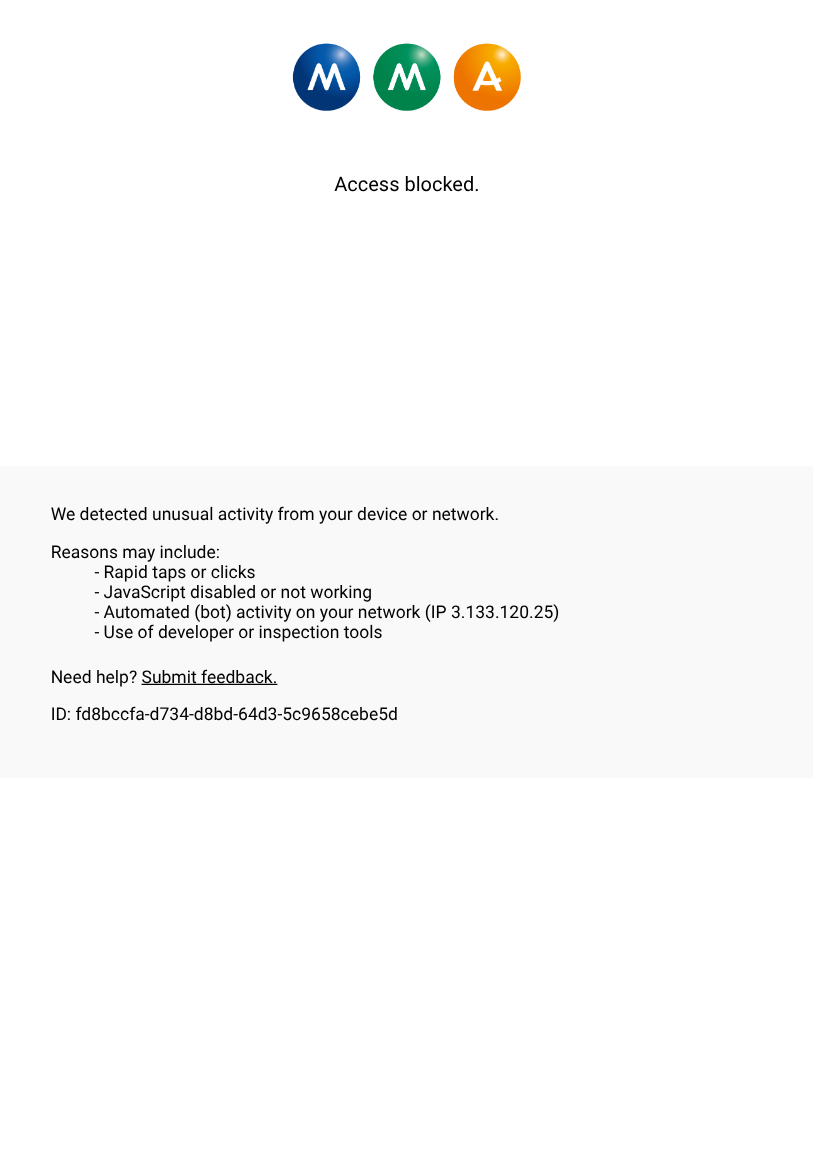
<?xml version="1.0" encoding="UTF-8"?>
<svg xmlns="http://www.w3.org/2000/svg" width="813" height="1161">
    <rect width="100%" height="100%" fill="#FFFFFF"/>
    <image x="0" y="43" width="813" height="735" href="img_01.png"/>
</svg>
